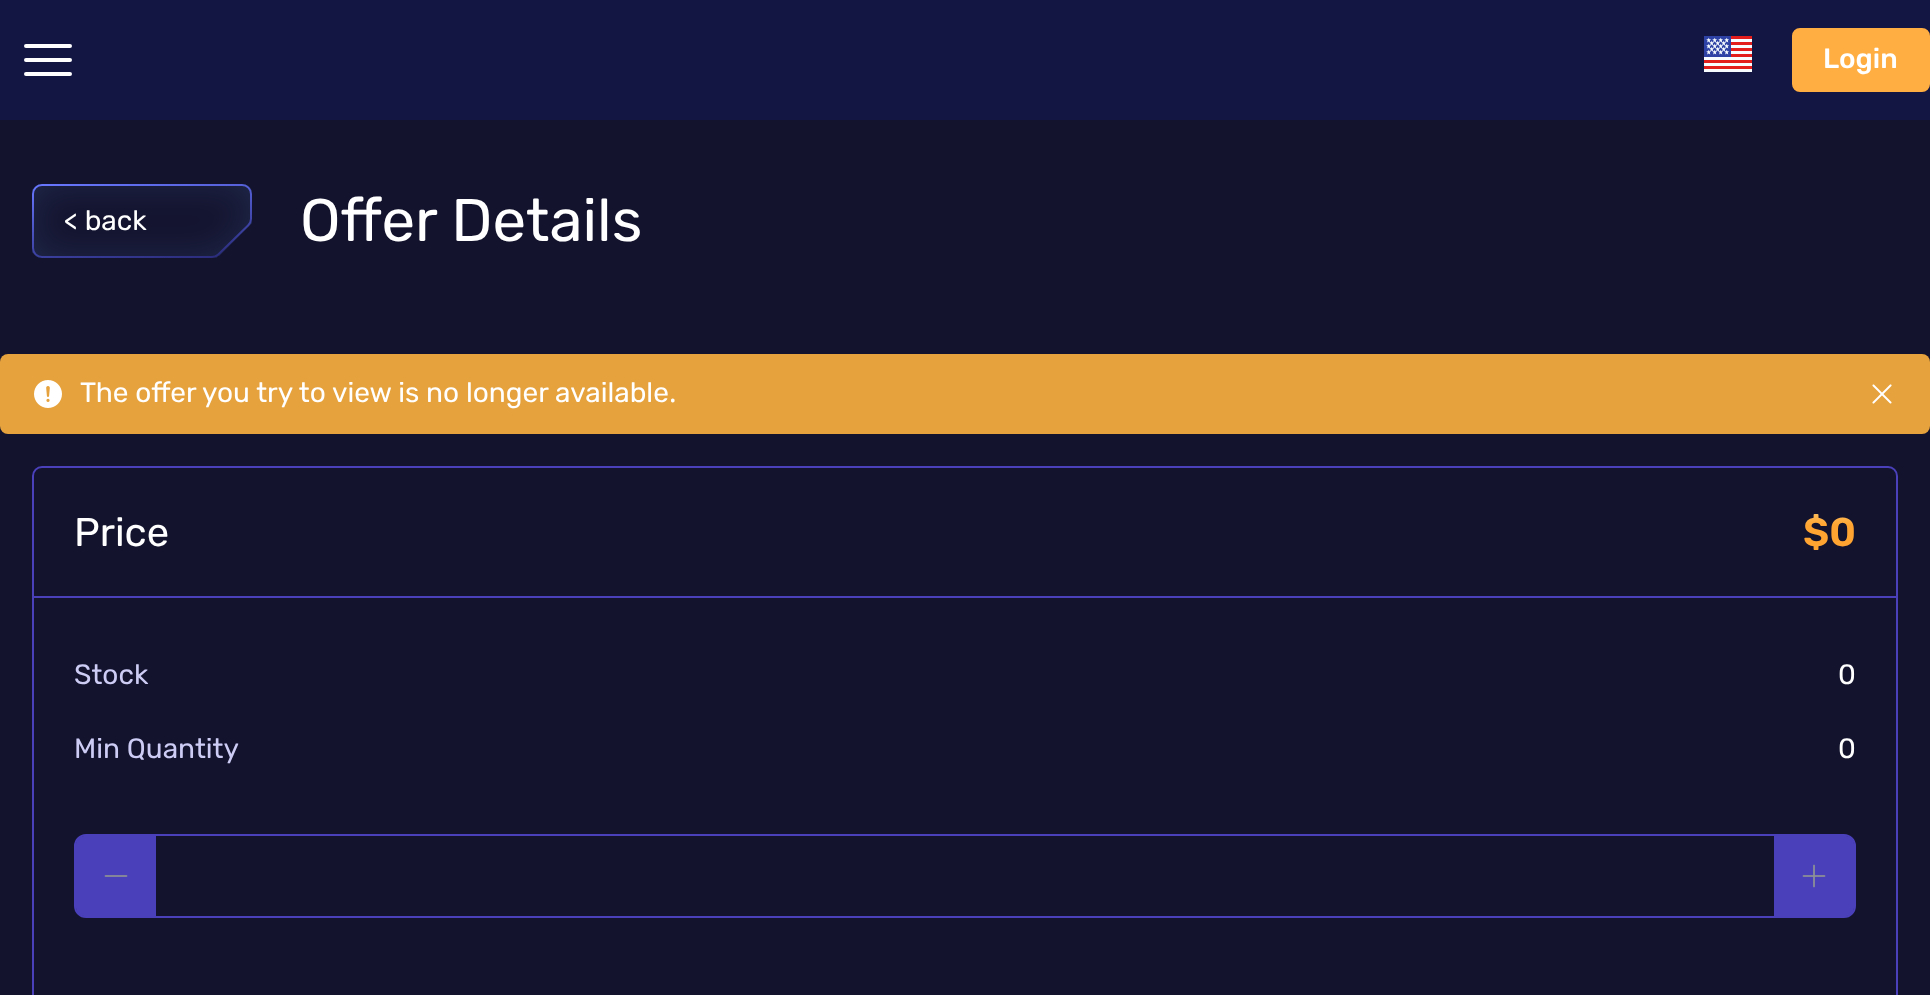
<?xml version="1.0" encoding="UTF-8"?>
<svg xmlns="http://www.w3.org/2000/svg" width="1930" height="995">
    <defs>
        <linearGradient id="g1" gradientUnits="userSpaceOnUse" x1="1830" y1="504" x2="1830" y2="560"><stop offset="0.09" stop-color="#FFC76B"/><stop offset="0.38" stop-color="#FFA430"/></linearGradient>
    </defs>
    <rect width="100%" height="100%" fill="#131543"/>
    <path d="M 26 46 H 70 M 26 60 H 70 M 26 74 H 70" fill="none" stroke="#FFFFFF" stroke-width="4" stroke-linecap="round" stroke-linejoin="round"/>
    <image x="1704" y="36" width="48" height="36" href="img_01.png"/>
    <rect x="1793" y="29" width="136" height="62" rx="7" fill="#FFAE42" stroke="#FFAE42" stroke-width="2"/>
    <text x="1823" y="68" font-family="Rubik" font-size="28" font-weight="500" fill="#FFFFFF">Login</text>
    <rect x="0" y="120" width="1930" height="875" fill="#13132E"/>
    <image x="32" y="184" width="220" height="74" href="img_02.png"/>
    <text x="64" y="230" font-family="Rubik" font-size="28" fill="#FFFFFF">&lt; back</text>
    <text x="300" y="241" font-family="Rubik" font-size="60" fill="#FFFFFF">Offer Details</text>
    <rect x="0" y="354" width="1930" height="80" rx="8" fill="#E6A23C"/>
    <image x="34" y="380" width="28" height="28" href="img_03.png"/>
    <text x="80" y="402" font-family="Rubik" font-size="28" fill="#FFFFFF">The offer you try to view is no longer available</text>
    <text x="669" y="402" font-family="Noto Sans" font-size="28" fill="#FFFFFF">.</text>
    <image x="1872" y="384" width="20" height="20" href="img_04.png"/>
    <rect x="33" y="467" width="1864" height="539" rx="9" fill="none" stroke="#4A40BA" stroke-width="2"/>
    <rect x="34" y="596" width="1862" height="2" fill="#4A40BA"/>
    <text x="74" y="546" font-family="Rubik" font-size="40" fill="#FFFFFF">Price</text>
    <text x="1803" y="546" font-family="Rubik" font-size="40" font-weight="600" fill="url(#g1)">$0</text>
    <text x="74" y="684" font-family="Rubik" font-size="28" fill="#CDCCF5">Stock</text>
    <text x="1838" y="684" font-family="Rubik" font-size="28" fill="#FFFFFF">0</text>
    <text x="74" y="758" font-family="Rubik" font-size="28" fill="#CDCCF5">Min Quantity</text>
    <text x="1838" y="758" font-family="Rubik" font-size="28" fill="#FFFFFF">0</text>
    <rect x="75" y="835" width="1780" height="82" rx="11" fill="none" stroke="#4A40BA" stroke-width="2"/>
    <path d="M 84 837 H 155 V 915 H 84 C 80 915 77 912 77 908 V 844 C 77 840 80 837 84 837 Z" fill="#4A40BA" stroke="#4A40BA" stroke-width="2"/>
    <image x="104" y="875" width="24" height="2" href="img_05.png"/>
    <path d="M 1775 837 H 1846 C 1850 837 1853 840 1853 844 V 908 C 1853 912 1850 915 1846 915 H 1775 Z" fill="#4A40BA" stroke="#4A40BA" stroke-width="2"/>
    <image x="1802" y="864" width="24" height="24" href="img_06.png"/>
</svg>
